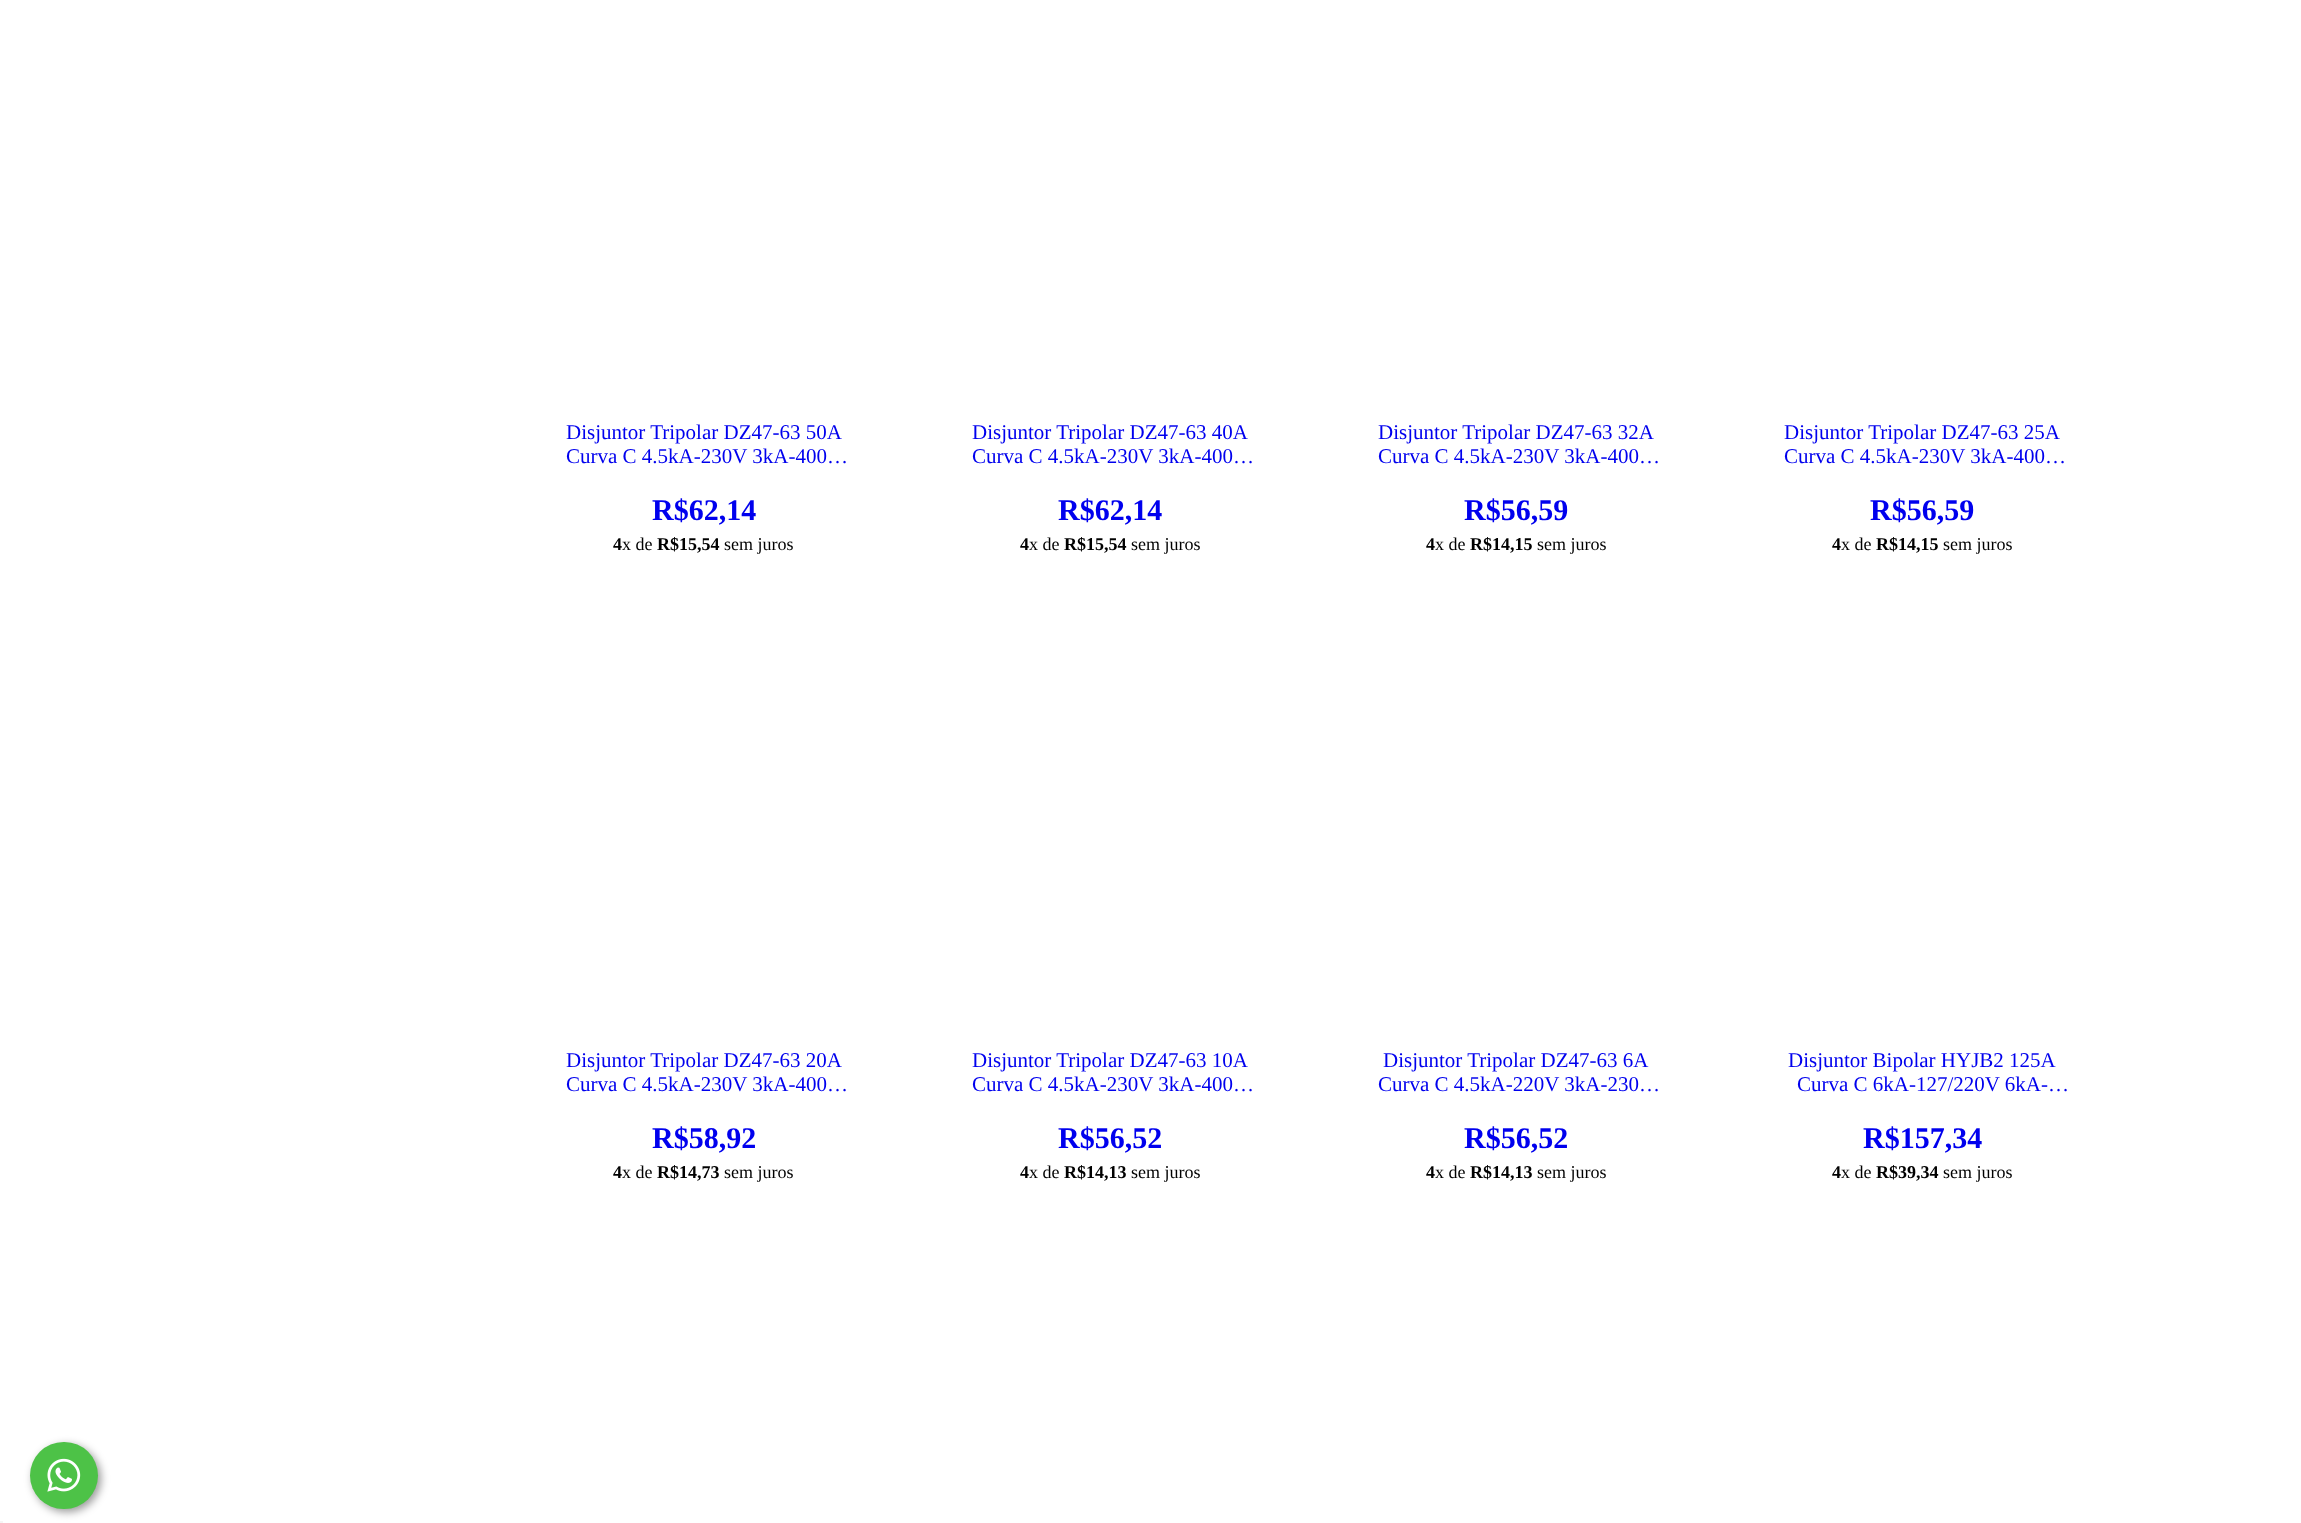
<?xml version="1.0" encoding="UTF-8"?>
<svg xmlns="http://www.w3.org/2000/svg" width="2301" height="1523">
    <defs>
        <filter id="blur1" x="-50%" y="-200%" width="200%" height="500%"><feGaussianBlur stdDeviation="4.5"/></filter>
    </defs>
    <rect width="100%" height="100%" fill="#FFFFFF"/>
    <text font-family="Liberation Serif" font-size="21" fill="#0000EE">
        <tspan x="566" y="439">Disjuntor Tripolar DZ47-63 50A</tspan>
        <tspan x="566" y="463">Curva C 4.5kA-230V 3kA-400…</tspan>
    </text>
    <text x="652" y="520" font-family="Liberation Serif" font-size="30" font-weight="700" fill="#0000EE">R$62,14</text>
    <text x="613" y="550" font-family="Liberation Serif" font-size="18" font-weight="700" fill="#000000">4</text>
    <text x="622" y="550" font-family="Liberation Serif" font-size="18" fill="#000000">x de</text>
    <text x="657" y="550" font-family="Liberation Serif" font-size="18" font-weight="700" fill="#000000">R$15,54</text>
    <text x="724" y="550" font-family="Liberation Serif" font-size="18" fill="#000000">sem juros</text>
    <text font-family="Liberation Serif" font-size="21" fill="#0000EE">
        <tspan x="972" y="439">Disjuntor Tripolar DZ47-63 40A</tspan>
        <tspan x="972" y="463">Curva C 4.5kA-230V 3kA-400…</tspan>
    </text>
    <text x="1058" y="520" font-family="Liberation Serif" font-size="30" font-weight="700" fill="#0000EE">R$62,14</text>
    <text x="1020" y="550" font-family="Liberation Serif" font-size="18" font-weight="700" fill="#000000">4</text>
    <text x="1029" y="550" font-family="Liberation Serif" font-size="18" fill="#000000">x de</text>
    <text x="1064" y="550" font-family="Liberation Serif" font-size="18" font-weight="700" fill="#000000">R$15,54</text>
    <text x="1131" y="550" font-family="Liberation Serif" font-size="18" fill="#000000">sem juros</text>
    <text font-family="Liberation Serif" font-size="21" fill="#0000EE">
        <tspan x="1378" y="439">Disjuntor Tripolar DZ47-63 32A</tspan>
        <tspan x="1378" y="463">Curva C 4.5kA-230V 3kA-400…</tspan>
    </text>
    <text x="1464" y="520" font-family="Liberation Serif" font-size="30" font-weight="700" fill="#0000EE">R$56,59</text>
    <text x="1426" y="550" font-family="Liberation Serif" font-size="18" font-weight="700" fill="#000000">4</text>
    <text x="1435" y="550" font-family="Liberation Serif" font-size="18" fill="#000000">x de</text>
    <text x="1470" y="550" font-family="Liberation Serif" font-size="18" font-weight="700" fill="#000000">R$14,15</text>
    <text x="1537" y="550" font-family="Liberation Serif" font-size="18" fill="#000000">sem juros</text>
    <text font-family="Liberation Serif" font-size="21" fill="#0000EE">
        <tspan x="1784" y="439">Disjuntor Tripolar DZ47-63 25A</tspan>
        <tspan x="1784" y="463">Curva C 4.5kA-230V 3kA-400…</tspan>
    </text>
    <text x="1870" y="520" font-family="Liberation Serif" font-size="30" font-weight="700" fill="#0000EE">R$56,59</text>
    <text x="1832" y="550" font-family="Liberation Serif" font-size="18" font-weight="700" fill="#000000">4</text>
    <text x="1841" y="550" font-family="Liberation Serif" font-size="18" fill="#000000">x de</text>
    <text x="1876" y="550" font-family="Liberation Serif" font-size="18" font-weight="700" fill="#000000">R$14,15</text>
    <text x="1943" y="550" font-family="Liberation Serif" font-size="18" fill="#000000">sem juros</text>
    <text font-family="Liberation Serif" font-size="21" fill="#0000EE">
        <tspan x="566" y="1067">Disjuntor Tripolar DZ47-63 20A</tspan>
        <tspan x="566" y="1091">Curva C 4.5kA-230V 3kA-400…</tspan>
    </text>
    <text x="652" y="1148" font-family="Liberation Serif" font-size="30" font-weight="700" fill="#0000EE">R$58,92</text>
    <text x="613" y="1178" font-family="Liberation Serif" font-size="18" font-weight="700" fill="#000000">4</text>
    <text x="622" y="1178" font-family="Liberation Serif" font-size="18" fill="#000000">x de</text>
    <text x="657" y="1178" font-family="Liberation Serif" font-size="18" font-weight="700" fill="#000000">R$14,73</text>
    <text x="724" y="1178" font-family="Liberation Serif" font-size="18" fill="#000000">sem juros</text>
    <text font-family="Liberation Serif" font-size="21" fill="#0000EE">
        <tspan x="972" y="1067">Disjuntor Tripolar DZ47-63 10A</tspan>
        <tspan x="972" y="1091">Curva C 4.5kA-230V 3kA-400…</tspan>
    </text>
    <text x="1058" y="1148" font-family="Liberation Serif" font-size="30" font-weight="700" fill="#0000EE">R$56,52</text>
    <text x="1020" y="1178" font-family="Liberation Serif" font-size="18" font-weight="700" fill="#000000">4</text>
    <text x="1029" y="1178" font-family="Liberation Serif" font-size="18" fill="#000000">x de</text>
    <text x="1064" y="1178" font-family="Liberation Serif" font-size="18" font-weight="700" fill="#000000">R$14,13</text>
    <text x="1131" y="1178" font-family="Liberation Serif" font-size="18" fill="#000000">sem juros</text>
    <text x="1383" y="1067" font-family="Liberation Serif" font-size="21" fill="#0000EE">Disjuntor Tripolar DZ47-63 6A</text>
    <text x="1378" y="1091" font-family="Liberation Serif" font-size="21" fill="#0000EE">Curva C 4.5kA-220V 3kA-230…</text>
    <text x="1464" y="1148" font-family="Liberation Serif" font-size="30" font-weight="700" fill="#0000EE">R$56,52</text>
    <text x="1426" y="1178" font-family="Liberation Serif" font-size="18" font-weight="700" fill="#000000">4</text>
    <text x="1435" y="1178" font-family="Liberation Serif" font-size="18" fill="#000000">x de</text>
    <text x="1470" y="1178" font-family="Liberation Serif" font-size="18" font-weight="700" fill="#000000">R$14,13</text>
    <text x="1537" y="1178" font-family="Liberation Serif" font-size="18" fill="#000000">sem juros</text>
    <text x="1788" y="1067" font-family="Liberation Serif" font-size="21" fill="#0000EE">Disjuntor Bipolar HYJB2 125A</text>
    <text x="1797" y="1091" font-family="Liberation Serif" font-size="21" fill="#0000EE">Curva C 6kA-127/220V 6kA-…</text>
    <text x="1863" y="1148" font-family="Liberation Serif" font-size="30" font-weight="700" fill="#0000EE">R$157,34</text>
    <text x="1832" y="1178" font-family="Liberation Serif" font-size="18" font-weight="700" fill="#000000">4</text>
    <text x="1841" y="1178" font-family="Liberation Serif" font-size="18" fill="#000000">x de</text>
    <text x="1876" y="1178" font-family="Liberation Serif" font-size="18" font-weight="700" fill="#000000">R$39,34</text>
    <text x="1943" y="1178" font-family="Liberation Serif" font-size="18" fill="#000000">sem juros</text>
    <rect x="0" y="1521" width="3" height="2" fill="#F5F5F5"/>
    <rect x="33" y="1445" width="68" height="67" rx="33.5" fill="#000000" fill-opacity="0.4" filter="url(#blur1)"/>
    <rect x="30" y="1442" width="68" height="67" rx="33.5" fill="#4DC247"/>
    <image x="47" y="1458" width="34" height="34" href="img_01.png"/>
</svg>
